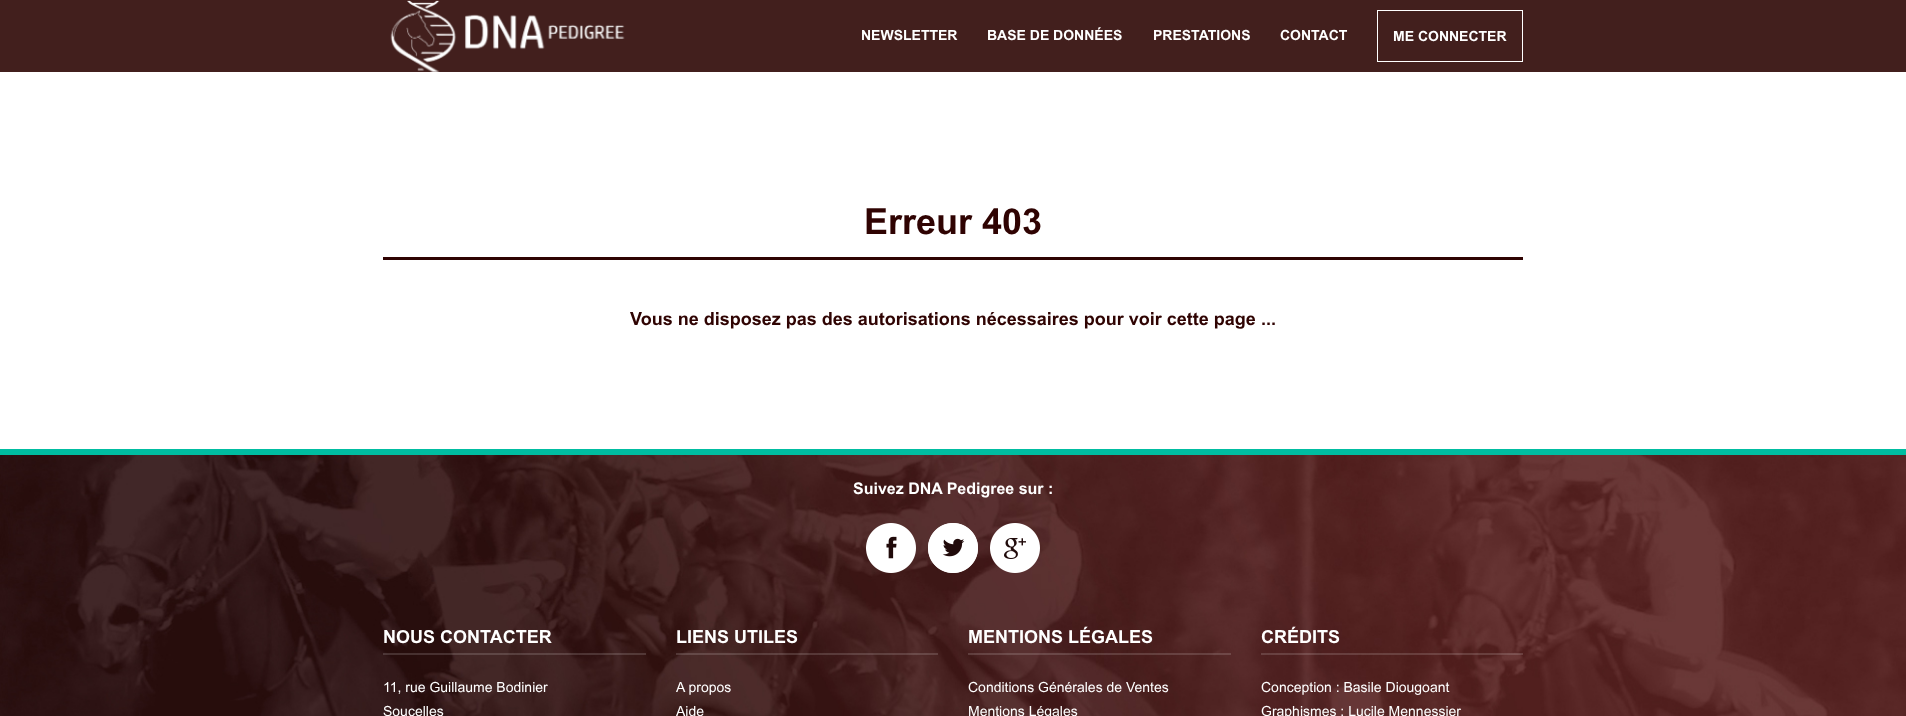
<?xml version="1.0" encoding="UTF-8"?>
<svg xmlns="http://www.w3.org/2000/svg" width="1906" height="716">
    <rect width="100%" height="100%" fill="#FFFFFF"/>
    <rect x="0" y="0" width="1906" height="72" fill="#421F1D"/>
    <image x="390" y="0" width="235" height="72" href="img_01.png"/>
    <text x="861" y="40" font-family="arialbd" font-size="14" font-weight="700" fill="#FFFFFF">NEWSLETTER</text>
    <text x="987" y="40" font-family="arialbd" font-size="14" font-weight="700" fill="#FFFFFF">BASE DE DONNÉES</text>
    <text x="1153" y="40" font-family="arialbd" font-size="14" font-weight="700" fill="#FFFFFF">PRESTATIONS</text>
    <text x="1280" y="40" font-family="arialbd" font-size="14" font-weight="700" fill="#FFFFFF">CONTACT</text>
    <rect x="1377.5" y="10.5" width="145" height="51" fill="none" stroke="#FFFFFF"/>
    <text x="1393" y="41" font-family="arialbd" font-size="14" font-weight="700" fill="#FFFFFF">ME CONNECTER</text>
    <rect x="383" y="257" width="1140" height="3" fill="#2F0302"/>
    <text x="864" y="234" font-family="arialbd" font-size="36" font-weight="700" fill="#2F0302">Erreur 403</text>
    <text x="630" y="325" font-family="arialbd" font-size="18" font-weight="700" fill="#2F0302">Vous ne disposez pas des autorisations nécessaires pour voir cette page ...</text>
    <image x="0" y="455" width="1906" height="261" href="img_02.png"/>
    <rect x="0" y="449" width="1906" height="6" fill="#00BDA1"/>
    <text x="853" y="494" font-family="arialbd" font-size="16" font-weight="700" fill="#FFFFFF">Suivez DNA Pedigree sur :</text>
    <image x="866" y="523" width="50" height="50" href="img_03.png"/>
    <image x="928" y="523" width="50" height="50" href="img_04.png"/>
    <image x="990" y="523" width="50" height="50" href="img_05.png"/>
    <rect x="383" y="653" width="263" height="2" fill="#FFFFFF" fill-opacity="0.15"/>
    <text x="383" y="643" font-family="arialbd" font-size="18" font-weight="700" fill="#FFFFFF">NOUS CONTACTER</text>
    <text font-family="Arial" font-size="14" fill="#FFFFFF">
        <tspan x="383" y="692">11, rue Guillaume Bodinier</tspan>
        <tspan x="383" y="716">Soucelles</tspan>
    </text>
    <rect x="676" y="653" width="262" height="2" fill="#FFFFFF" fill-opacity="0.15"/>
    <text x="676" y="643" font-family="arialbd" font-size="18" font-weight="700" fill="#FFFFFF">LIENS UTILES</text>
    <text font-family="Arial" font-size="14" fill="#FFFFFF">
        <tspan x="676" y="692">A propos</tspan>
        <tspan x="676" y="716">Aide</tspan>
    </text>
    <rect x="968" y="653" width="263" height="2" fill="#FFFFFF" fill-opacity="0.15"/>
    <text x="968" y="643" font-family="arialbd" font-size="18" font-weight="700" fill="#FFFFFF">MENTIONS LÉGALES</text>
    <text font-family="Arial" font-size="14" fill="#FFFFFF">
        <tspan x="968" y="692">Conditions Générales de Ventes</tspan>
        <tspan x="968" y="716">Mentions Légales</tspan>
    </text>
    <rect x="1261" y="653" width="262" height="2" fill="#FFFFFF" fill-opacity="0.15"/>
    <text x="1261" y="643" font-family="arialbd" font-size="18" font-weight="700" fill="#FFFFFF">CRÉDITS</text>
    <text font-family="Arial" font-size="14" fill="#FFFFFF">
        <tspan x="1261" y="692">Conception : Basile Diougoant</tspan>
        <tspan x="1261" y="716">Graphismes : Lucile Mennessier</tspan>
    </text>
</svg>
